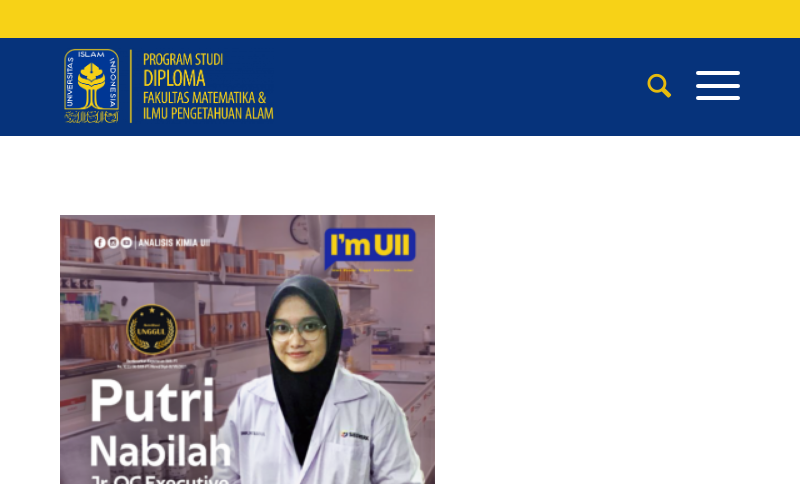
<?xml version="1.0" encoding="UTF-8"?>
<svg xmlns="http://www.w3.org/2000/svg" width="800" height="484">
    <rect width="100%" height="100%" fill="#FFFFFF"/>
    <rect x="0" y="0" width="800" height="38" fill="#F7D217"/>
    <rect x="0" y="38" width="800" height="98" fill="#06337B"/>
    <image x="64" y="48" width="210" height="76" href="img_01.png"/>
    <image x="647" y="73" width="25" height="25" href="img_02.png"/>
    <rect x="696" y="84" width="44" height="4" rx="2" fill="#FFFFFF"/>
    <rect x="696" y="71" width="44" height="4" rx="2" fill="#FFFFFF"/>
    <rect x="696" y="96" width="44" height="4" rx="2" fill="#FFFFFF"/>
    <image x="60" y="215" width="375" height="269" href="img_03.png"/>
</svg>
